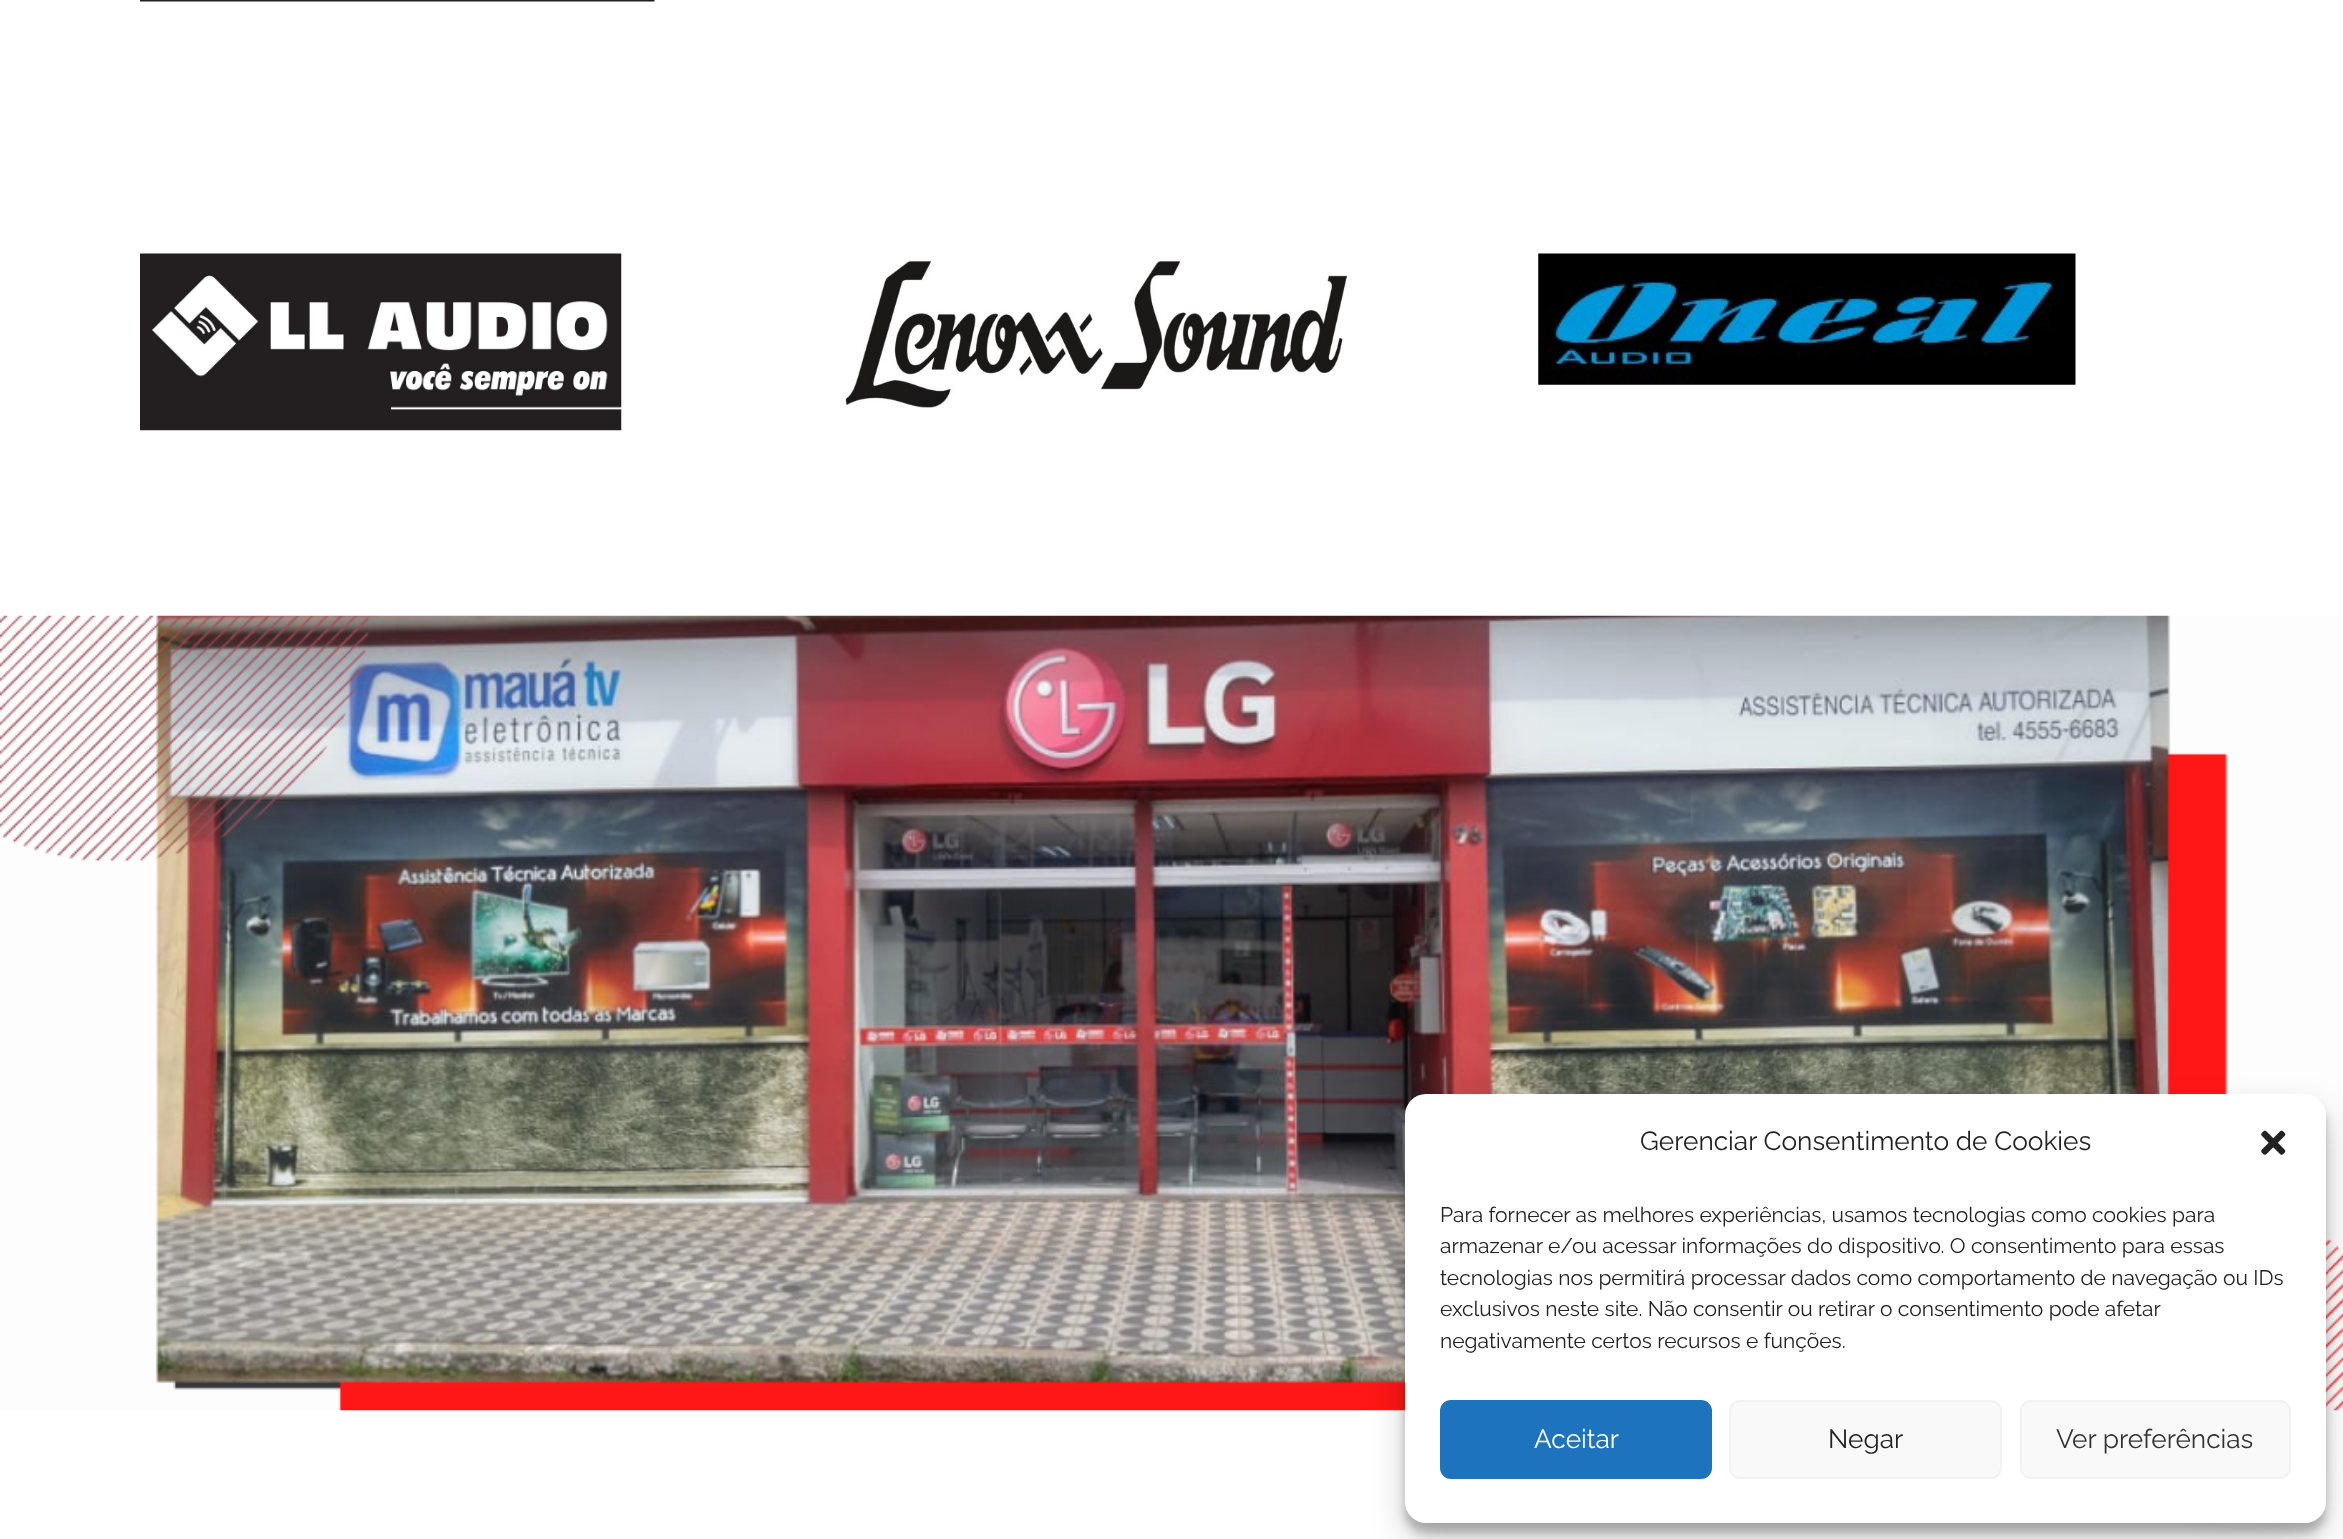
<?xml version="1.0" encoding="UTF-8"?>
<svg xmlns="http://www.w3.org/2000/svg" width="2343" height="1539">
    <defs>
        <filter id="blur1" x="-50%" y="-200%" width="200%" height="500%"><feGaussianBlur stdDeviation="5"/></filter>
        <filter id="blur2" x="-50%" y="-200%" width="200%" height="500%"><feGaussianBlur stdDeviation="17.5"/></filter>
        <filter id="blur3" x="-50%" y="-200%" width="200%" height="500%"><feGaussianBlur stdDeviation="21"/></filter>
    </defs>
    <rect width="100%" height="100%" fill="#FFFFFF"/>
    <image x="140" y="0" width="515" height="2" href="img_01.png"/>
    <image x="140" y="253" width="482" height="178" href="img_02.png"/>
    <image x="845" y="259" width="502" height="149" href="img_03.png"/>
    <image x="1538" y="253" width="538" height="132" href="img_04.png"/>
    <image x="0" y="615" width="2343" height="796" href="img_05.png"/>
    <rect x="1405" y="1104" width="921" height="429" rx="21" fill="#000000" fill-opacity="0.23" filter="url(#blur1)"/>
    <rect x="1405" y="1111" width="921" height="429" rx="21" fill="#000000" fill-opacity="0.19" filter="url(#blur2)"/>
    <rect x="2191" y="1397" width="105" height="105" rx="52.5" fill="#075E54" fill-opacity="0.24" filter="url(#blur3)"/>
    <rect x="1405" y="1094" width="921" height="429" rx="21" fill="#FFFFFF"/>
    <text x="1640" y="1150" font-family="Raleway" font-size="26.25" font-weight="100" fill="#222222">Gerenciar Consentimento de Cookies</text>
    <image x="2261" y="1130" width="25" height="25" href="img_06.png"/>
    <text font-family="Raleway" font-size="21" font-weight="100" fill="#222222">
        <tspan x="1440" y="1222">Para fornecer as melhores experiências, usamos tecnologias como cookies para</tspan>
        <tspan x="1440" y="1253">armazenar e/ou acessar informações do dispositivo. O consentimento para essas</tspan>
        <tspan x="1440" y="1285">tecnologias nos permitirá processar dados como comportamento de navegação ou IDs</tspan>
        <tspan x="1440" y="1316">exclusivos neste site. Não consentir ou retirar o consentimento pode afetar</tspan>
        <tspan x="1440" y="1348">negativamente certos recursos e funções.</tspan>
    </text>
    <rect x="1441" y="1401" width="270" height="77" rx="10" fill="#1E73BE" stroke="#1E73BE" stroke-width="2"/>
    <text x="1534" y="1448" font-family="Raleway" font-size="26.25" font-weight="100" fill="#FFFFFF">Aceitar</text>
    <rect x="1730" y="1401" width="271" height="77" rx="10" fill="#F9F9F9" stroke="#F2F2F2" stroke-width="2"/>
    <text x="1828" y="1448" font-family="Raleway" font-size="26.25" font-weight="100" fill="#222222">Negar</text>
    <rect x="2021" y="1401" width="269" height="77" rx="10" fill="#F9F9F9" stroke="#F2F2F2" stroke-width="2"/>
    <text x="2056" y="1448" font-family="Raleway" font-size="26.25" font-weight="100" fill="#333333">Ver preferências</text>
</svg>
